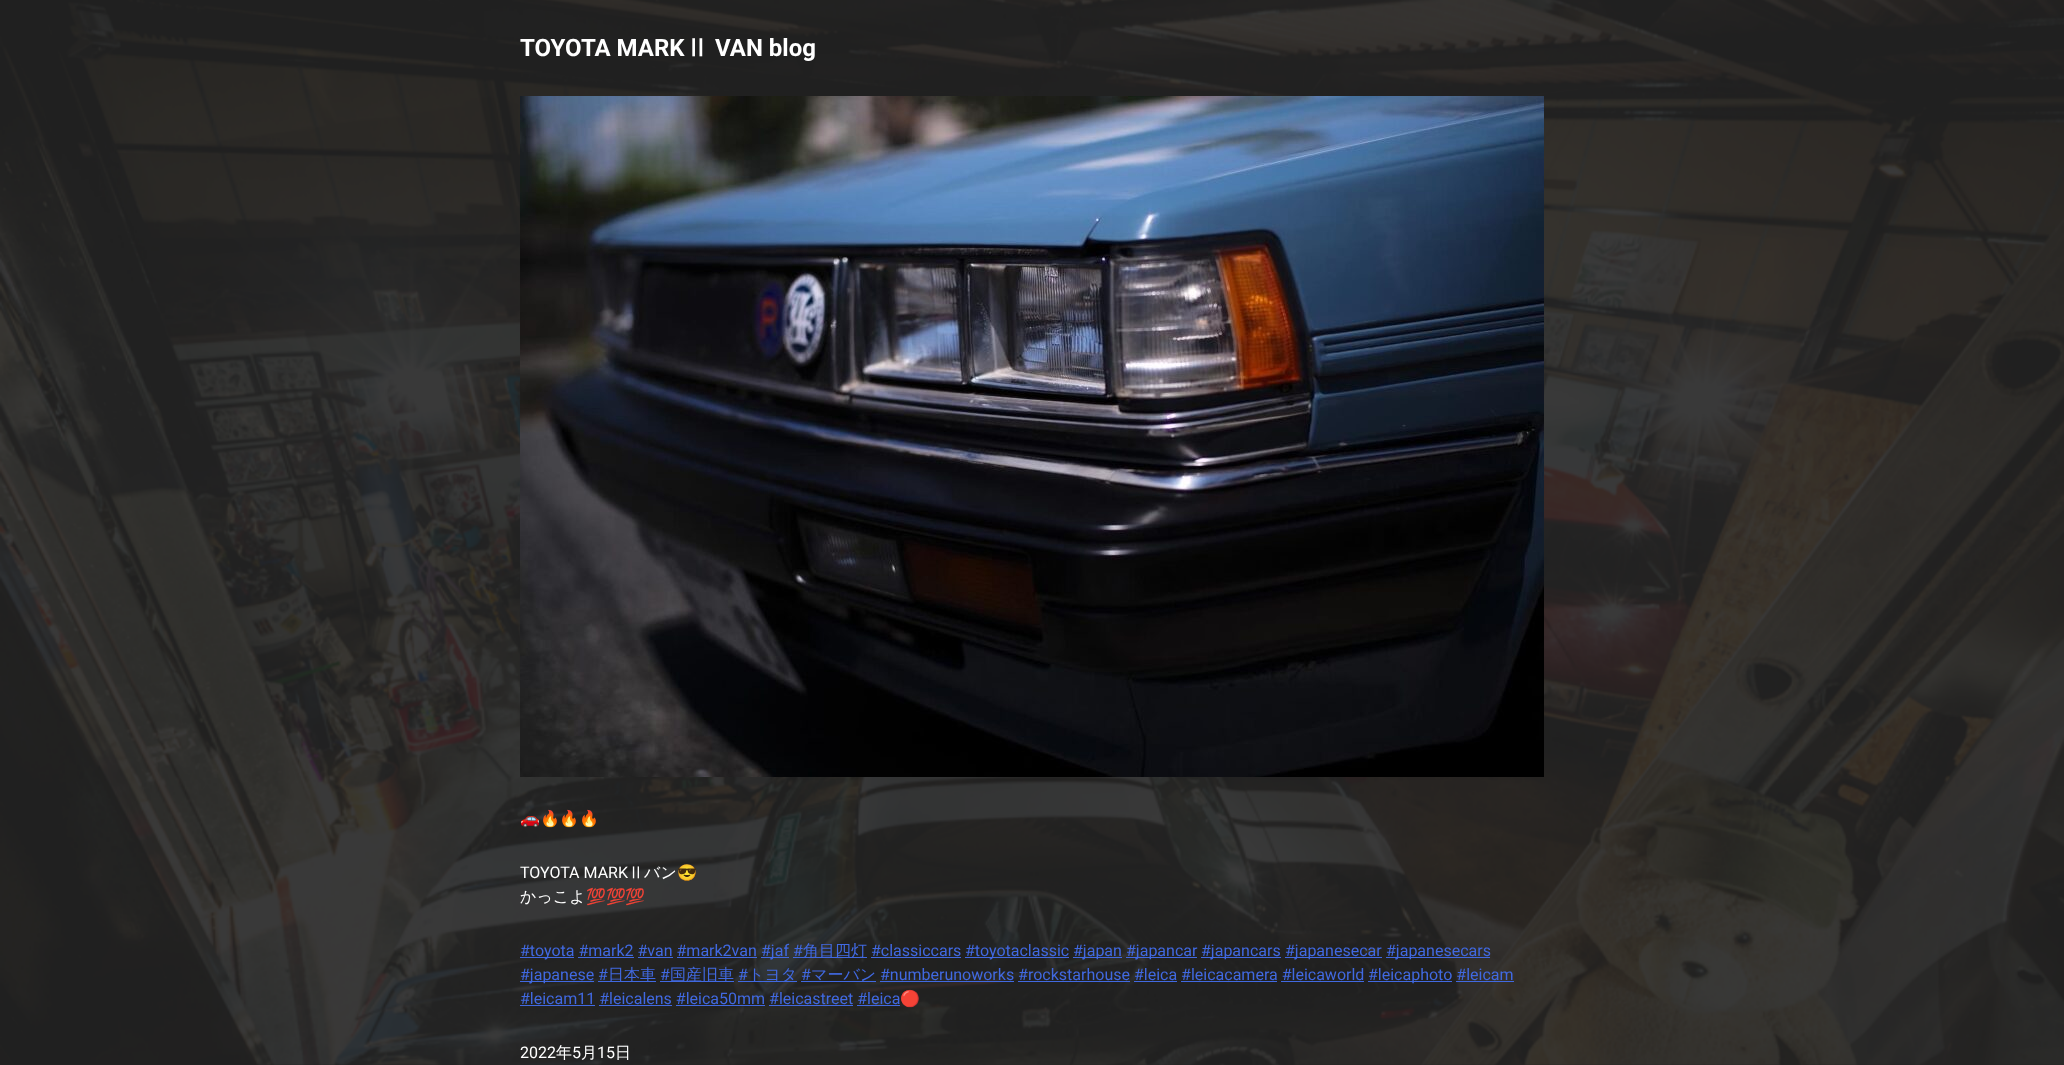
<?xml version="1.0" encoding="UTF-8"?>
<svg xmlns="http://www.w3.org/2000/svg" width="2064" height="1065">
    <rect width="100%" height="100%" fill="#242424"/>
    <image x="0" y="0" width="2064" height="1065" href="img_01.png"/>
    <text x="520" y="56" font-family="Roboto" font-size="24" font-weight="700" fill="#FFFFFF">TOYOTA MARK</text>
    <text x="685" y="56" font-family="WenQuanYi Zen Hei" font-size="24" font-weight="700" fill="#FFFFFF">Ⅱ</text>
    <text x="715" y="56" font-family="Roboto" font-size="24" font-weight="700" fill="#FFFFFF">VAN blog</text>
    <image x="520" y="96" width="1024" height="681" href="img_02.png"/>
    <text x="520" y="824" font-family="Noto Color Emoji" font-size="16" fill="#FFFFFF">🚗🔥🔥🔥</text>
    <text x="520" y="878" font-family="Roboto" font-size="16" fill="#FFFFFF">TOYOTA MARK</text>
    <text x="628" y="878" font-family="WenQuanYi Zen Hei" font-size="16" font-weight="500" fill="#FFFFFF">Ⅱバン</text>
    <text x="677" y="878" font-family="Noto Color Emoji" font-size="16" fill="#FFFFFF">😎</text>
    <text x="520" y="902" font-family="WenQuanYi Zen Hei" font-size="16" font-weight="500" fill="#FFFFFF">かっこよ</text>
    <text x="586" y="902" font-family="Noto Color Emoji" font-size="16" fill="#FFFFFF">💯💯💯</text>
    <rect x="520" y="957" width="54" height="1" fill="#4169E1"/>
    <text x="520" y="956" font-family="Roboto" font-size="16" fill="#4169E1">#toyota #mark2 #van #mark2van</text>
    <rect x="761" y="957" width="28" height="1" fill="#4169E1"/>
    <text x="761" y="956" font-family="Roboto" font-size="16" fill="#4169E1">#jaf #</text>
    <rect x="793" y="957" width="74" height="1" fill="#4169E1"/>
    <text x="803" y="956" font-family="WenQuanYi Zen Hei" font-size="16" font-weight="500" fill="#4169E1">角目四灯</text>
    <text x="871" y="956" font-family="Roboto" font-size="16" fill="#4169E1">#classiccars</text>
    <rect x="871" y="957" width="90" height="1" fill="#4169E1"/>
    <rect x="965" y="957" width="104" height="1" fill="#4169E1"/>
    <text x="965" y="956" font-family="Roboto" font-size="16" fill="#4169E1">#toyotaclassic</text>
    <rect x="1073" y="957" width="49" height="1" fill="#4169E1"/>
    <text x="1073" y="956" font-family="Roboto" font-size="16" fill="#4169E1">#japan</text>
    <rect x="1126" y="957" width="71" height="1" fill="#4169E1"/>
    <text x="1126" y="956" font-family="Roboto" font-size="16" fill="#4169E1">#japancar</text>
    <rect x="1201" y="957" width="80" height="1" fill="#4169E1"/>
    <text x="1201" y="956" font-family="Roboto" font-size="16" fill="#4169E1">#japancars</text>
    <rect x="1285" y="957" width="97" height="1" fill="#4169E1"/>
    <text x="1285" y="956" font-family="Roboto" font-size="16" fill="#4169E1">#japanesecar</text>
    <rect x="1386" y="957" width="104" height="1" fill="#4169E1"/>
    <text x="1386" y="956" font-family="Roboto" font-size="16" fill="#4169E1">#japanesecars</text>
    <rect x="578" y="957" width="56" height="1" fill="#4169E1"/>
    <rect x="638" y="957" width="35" height="1" fill="#4169E1"/>
    <rect x="677" y="957" width="80" height="1" fill="#4169E1"/>
    <rect x="520" y="981" width="74" height="1" fill="#4169E1"/>
    <text x="520" y="980" font-family="Roboto" font-size="16" fill="#4169E1">#japanese #</text>
    <rect x="598" y="981" width="58" height="1" fill="#4169E1"/>
    <text x="608" y="980" font-family="WenQuanYi Zen Hei" font-size="16" font-weight="500" fill="#4169E1">日本車</text>
    <text x="660" y="980" font-family="Roboto" font-size="16" fill="#4169E1">#</text>
    <rect x="660" y="981" width="74" height="1" fill="#4169E1"/>
    <text x="670" y="980" font-family="WenQuanYi Zen Hei" font-size="16" font-weight="500" fill="#4169E1">国産旧車</text>
    <text x="738" y="980" font-family="Roboto" font-size="16" fill="#4169E1">#</text>
    <rect x="738" y="981" width="59" height="1" fill="#4169E1"/>
    <text x="748" y="980" font-family="WenQuanYi Zen Hei" font-size="16" font-weight="500" fill="#4169E1">トヨタ</text>
    <text x="801" y="980" font-family="Roboto" font-size="16" fill="#4169E1">#</text>
    <rect x="801" y="981" width="75" height="1" fill="#4169E1"/>
    <text x="811" y="980" font-family="WenQuanYi Zen Hei" font-size="16" font-weight="500" fill="#4169E1">マーバン</text>
    <text x="880" y="980" font-family="Roboto" font-size="16" fill="#4169E1">#numberunoworks #rockstarhouse #leica #leicacamera #leicaworld</text>
    <rect x="880" y="981" width="134" height="1" fill="#4169E1"/>
    <rect x="1368" y="981" width="84" height="1" fill="#4169E1"/>
    <text x="1368" y="980" font-family="Roboto" font-size="16" fill="#4169E1">#leicaphoto #leicam</text>
    <rect x="1018" y="981" width="112" height="1" fill="#4169E1"/>
    <rect x="1134" y="981" width="43" height="1" fill="#4169E1"/>
    <rect x="1181" y="981" width="96" height="1" fill="#4169E1"/>
    <rect x="1281" y="981" width="83" height="1" fill="#4169E1"/>
    <rect x="1456" y="981" width="58" height="1" fill="#4169E1"/>
    <text x="520" y="1004" font-family="Roboto" font-size="16" fill="#4169E1">#leicam11 #leicalens #leica50mm #leicastreet #leica</text>
    <rect x="520" y="1005" width="75" height="1" fill="#4169E1"/>
    <text x="900" y="1004" font-family="Noto Color Emoji" font-size="16" fill="#FFFFFF">🔴</text>
    <rect x="599" y="1005" width="73" height="1" fill="#4169E1"/>
    <rect x="676" y="1005" width="89" height="1" fill="#4169E1"/>
    <rect x="769" y="1005" width="84" height="1" fill="#4169E1"/>
    <rect x="857" y="1005" width="43" height="1" fill="#4169E1"/>
    <text x="520" y="1058" font-family="Roboto" font-size="16" fill="#FFFFFF">2022</text>
    <text x="556" y="1058" font-family="WenQuanYi Zen Hei" font-size="16" font-weight="500" fill="#FFFFFF">年</text>
    <text x="572" y="1058" font-family="Roboto" font-size="16" fill="#FFFFFF">5</text>
    <text x="581" y="1058" font-family="WenQuanYi Zen Hei" font-size="16" font-weight="500" fill="#FFFFFF">月</text>
    <text x="597" y="1058" font-family="Roboto" font-size="16" fill="#FFFFFF">15</text>
    <text x="615" y="1058" font-family="WenQuanYi Zen Hei" font-size="16" font-weight="500" fill="#FFFFFF">日</text>
</svg>
